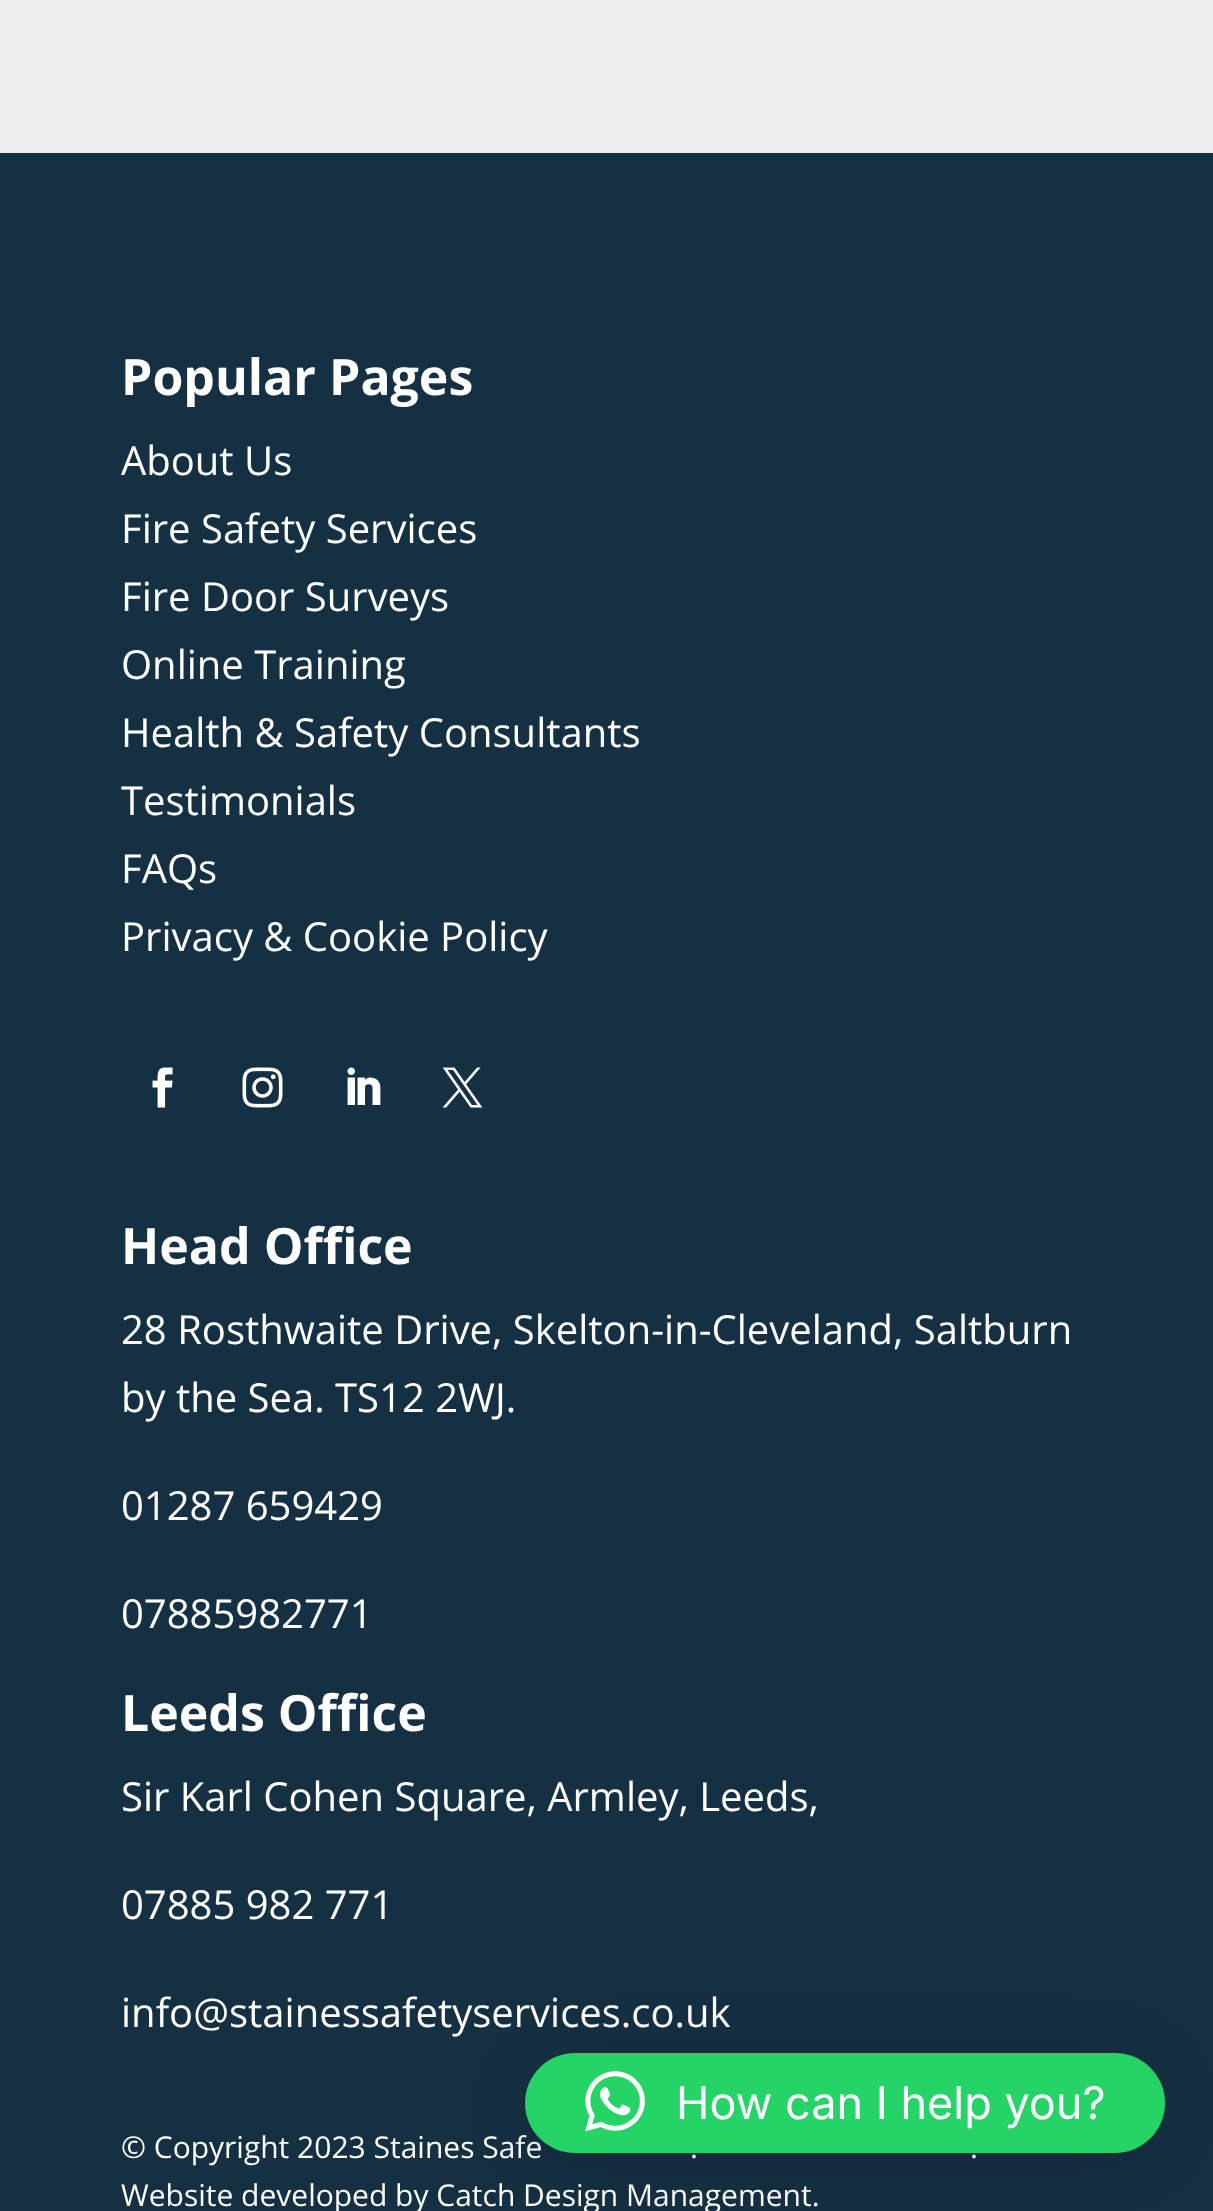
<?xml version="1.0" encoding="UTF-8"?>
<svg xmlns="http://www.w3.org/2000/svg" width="1213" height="2211">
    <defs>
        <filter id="blur1" x="-50%" y="-200%" width="200%" height="500%"><feGaussianBlur stdDeviation="40"/></filter>
    </defs>
    <rect width="100%" height="100%" fill="#EDEDED"/>
    <rect x="0" y="153" width="1213" height="2058" fill="#143042"/>
    <text x="121" y="395" font-family="Open Sans" font-size="50" font-weight="700" fill="#FFFFFF">Popular Pages</text>
    <text font-family="Open Sans" font-size="40" fill="#FFFFFF">
        <tspan x="121" y="475">About Us</tspan>
        <tspan x="121" y="543">Fire Safety Services</tspan>
        <tspan x="121" y="611">Fire Door Surveys</tspan>
        <tspan x="121" y="679">Online Training</tspan>
        <tspan x="121" y="747">Health &amp; Safety Consultants</tspan>
        <tspan x="121" y="815">Testimonials</tspan>
        <tspan x="121" y="883">FAQs</tspan>
        <tspan x="121" y="951">Privacy &amp; Cookie Policy</tspan>
    </text>
    <image x="152" y="1067" width="21" height="41" href="img_01.png"/>
    <image x="242" y="1067" width="41" height="41" href="img_02.png"/>
    <image x="347" y="1067" width="34" height="38" href="img_03.png"/>
    <image x="442" y="1067" width="41" height="41" href="img_04.png"/>
    <text x="121" y="1264" font-family="Open Sans" font-size="50" font-weight="700" fill="#FFFFFF">Head Office</text>
    <text font-family="Open Sans" font-size="40" fill="#FFFFFF">
        <tspan x="121" y="1344">28 Rosthwaite Drive, Skelton-in-Cleveland, Saltburn</tspan>
        <tspan x="121" y="1412">by the Sea. TS12 2WJ.</tspan>
    </text>
    <text x="121" y="1520" font-family="Open Sans" font-size="40" fill="#FFFFFF">01287 659429</text>
    <text x="121" y="1628" font-family="Open Sans" font-size="40" fill="#FFFFFF">07885982771</text>
    <text x="121" y="1731" font-family="Open Sans" font-size="50" font-weight="700" fill="#FFFFFF">Leeds Office</text>
    <text x="121" y="1811" font-family="Open Sans" font-size="40" fill="#FFFFFF">Sir Karl Cohen Square, Armley, Leeds,</text>
    <text x="121" y="1919" font-family="Open Sans" font-size="40" fill="#FFFFFF">07885 982 771</text>
    <text x="121" y="2027" font-family="Open Sans" font-size="40" fill="#FFFFFF">info@stainessafetyservices.co.uk</text>
    <text x="121" y="2158" font-family="Open Sans" font-size="30" fill="#FFFFFF">© Copyright 2023 Staines Safe</text>
    <text x="690" y="2158" font-family="Open Sans" font-size="30" fill="#FFFFFF">.</text>
    <text x="970" y="2158" font-family="Open Sans" font-size="30" fill="#FFFFFF">.</text>
    <text x="121" y="2206" font-family="Open Sans" font-size="30" fill="#FFFFFF">Website developed by Catch Design Management.</text>
    <rect x="525" y="2058" width="640" height="100" rx="50" fill="#000000" fill-opacity="0.16" filter="url(#blur1)"/>
    <rect x="525" y="2053" width="640" height="100" rx="50" fill="#25D366"/>
    <image x="585" y="2071" width="60" height="61" href="img_05.png"/>
    <text x="676" y="2119" font-family="Inter" font-size="45" fill="#FFFFFF">How can I help you?</text>
</svg>
